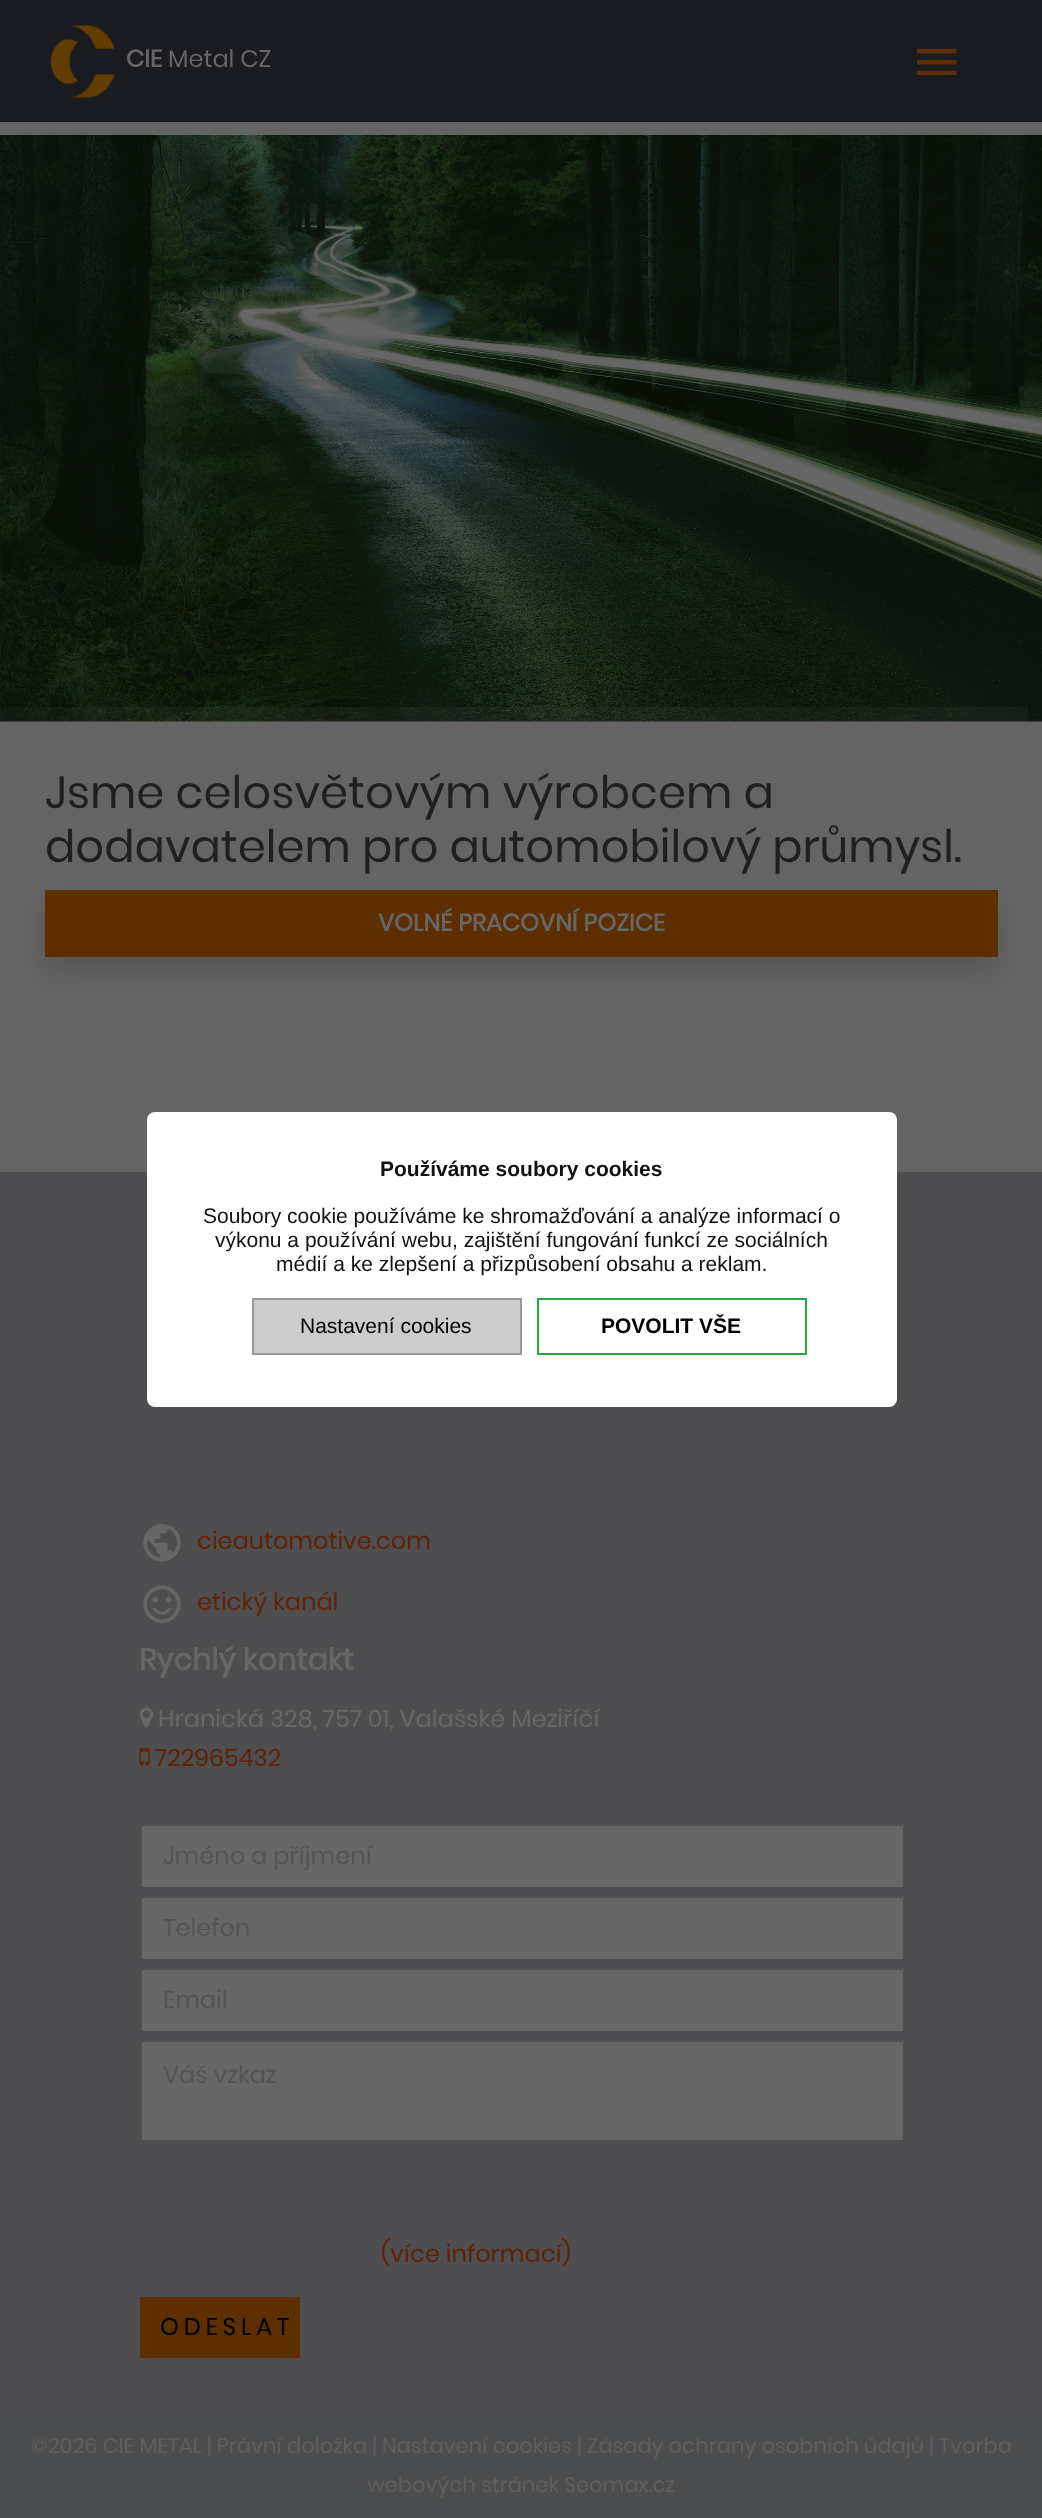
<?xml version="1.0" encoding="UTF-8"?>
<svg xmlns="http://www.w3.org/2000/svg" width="1042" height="2518">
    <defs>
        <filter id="blur1" x="-50%" y="-200%" width="200%" height="500%"><feGaussianBlur stdDeviation="15"/></filter>
        <clipPath id="clip1"><rect x="164" y="1838" width="717" height="37"/></clipPath>
    </defs>
    <rect width="100%" height="100%" fill="#646464"/>
    <rect x="0" y="0" width="1042" height="122" fill="#1A1B21"/>
    <image x="50" y="24" width="65" height="75" href="img_01.png"/>
    <text x="126" y="67" font-family="Poppins" font-size="24" font-weight="700" fill="#666666">CIE</text>
    <text x="168" y="67" font-family="Poppins" font-size="24" fill="#666666">Metal CZ</text>
    <path d="M 917 49 H 956.5 V 53.5 H 917 Z M 917 64.5 V 60 H 956.5 V 64.5 Z M 917 75 V 71 H 956.5 V 75 Z" fill="#5D2E00"/>
    <image x="0" y="135" width="1042" height="587" href="img_02.png"/>
    <path d="M -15 707 V 987 H 0 V 722 H 1028 V 707 Z" fill="#666666" fill-opacity="0.1"/>
    <text font-family="Poppins" font-size="45" fill="#1F1F1F">
        <tspan x="45" y="808">Jsme celosvětovým výrobcem a</tspan>
        <tspan x="45" y="862">dodavatelem pro automobilový průmysl.</tspan>
    </text>
    <rect x="45" y="905" width="953" height="67" fill="#000000" fill-opacity="0.15" filter="url(#blur1)"/>
    <rect x="45" y="890" width="953" height="67" fill="#5D2E00"/>
    <text x="378" y="931" font-family="Poppins" font-size="24" font-weight="700" fill="#666666">VOLNÉ PRACOVNÍ POZICE</text>
    <rect x="0" y="1172" width="1042" height="1239" fill="#4E4E50"/>
    <rect x="147" y="1112" width="750" height="295" rx="8" fill="#FFFFFF"/>
    <text x="380" y="1176" font-family="Liberation Sans" font-size="21" font-weight="700" fill="#111111">Používáme soubory cookies</text>
    <text x="203" y="1223" font-family="Liberation Sans" font-size="21" fill="#111111">Soubory cookie používáme ke shromažďování a analýze informací o</text>
    <text x="215" y="1247" font-family="Liberation Sans" font-size="21" fill="#111111">výkonu a používání webu, zajištění fungování funkcí ze sociálních</text>
    <text x="276" y="1271" font-family="Liberation Sans" font-size="21" fill="#111111">médií a ke zlepšení a přizpůsobení obsahu a reklam.</text>
    <rect x="253" y="1299" width="268" height="55" fill="#CCCCCC" stroke="#999999" stroke-width="2"/>
    <text x="300" y="1333" font-family="Liberation Sans" font-size="21" fill="#000000">Nastavení cookies</text>
    <rect x="538" y="1299" width="268" height="55" fill="none" stroke="#28A745" stroke-width="2"/>
    <text x="601" y="1333" font-family="Liberation Sans" font-size="21" font-weight="700" fill="#000000">POVOLIT VŠE</text>
    <image x="143" y="1524" width="38" height="38" href="img_03.png"/>
    <text x="197" y="1549" font-family="Poppins" font-size="24" fill="#612305">cieautomotive.com</text>
    <image x="143" y="1585" width="38" height="38" href="img_04.png"/>
    <text x="197" y="1610" font-family="Poppins" font-size="24" fill="#612305">etický kanál</text>
    <text x="139" y="1670" font-family="Poppins" font-size="30" font-weight="700" fill="#666666">Rychlý kontakt</text>
    <image x="139" y="1707" width="15" height="21" href="img_05.png"/>
    <text x="158" y="1727" font-family="Poppins" font-size="24" fill="#666666">Hranická 328, 757 01, Valašské Meziříčí</text>
    <image x="139" y="1748" width="11" height="18" href="img_06.png"/>
    <text x="155" y="1766" font-family="Poppins" font-size="24" fill="#612305">722965432</text>
    <rect x="142" y="1826" width="761" height="61" fill="#666666"/>
    <g clip-path="url(#clip1)">
        <text x="163" y="1864" font-family="Poppins" font-size="24" fill="#525557">Jméno a příjmení</text>
    </g>
    <rect x="142" y="1898" width="761" height="61" fill="#666666"/>
    <text x="163" y="1936" font-family="Poppins" font-size="24" fill="#525557">Telefon</text>
    <rect x="142" y="1970" width="761" height="61" fill="#666666"/>
    <text x="163" y="2008" font-family="Poppins" font-size="24" fill="#525557">Email</text>
    <rect x="142" y="2042" width="761" height="98" fill="#666666"/>
    <text x="163" y="2083" font-family="Poppins" font-size="24" fill="#525557">Váš vzkaz</text>
    <text x="381" y="2262" font-family="Poppins" font-size="24" fill="#612305">(více informací)</text>
    <rect x="140" y="2297" width="160" height="61" fill="#5D2E00"/>
    <text x="160" y="2335" font-family="Poppins" font-size="24" letter-spacing="4.75" fill="#000000">ODESLAT</text>
    <rect x="0" y="2411" width="1042" height="107" fill="#4C4D4F"/>
    <text x="31" y="2453" font-family="Poppins" font-size="21" fill="#5E5E5E">©2026 CIE METAL | Právní doložka | Nastavení cookies | Zásady ochrany osobních údajů | Tvorba</text>
    <text x="367" y="2492" font-family="Poppins" font-size="21" fill="#5E5E5E">webových stránek Seomax.cz</text>
</svg>
